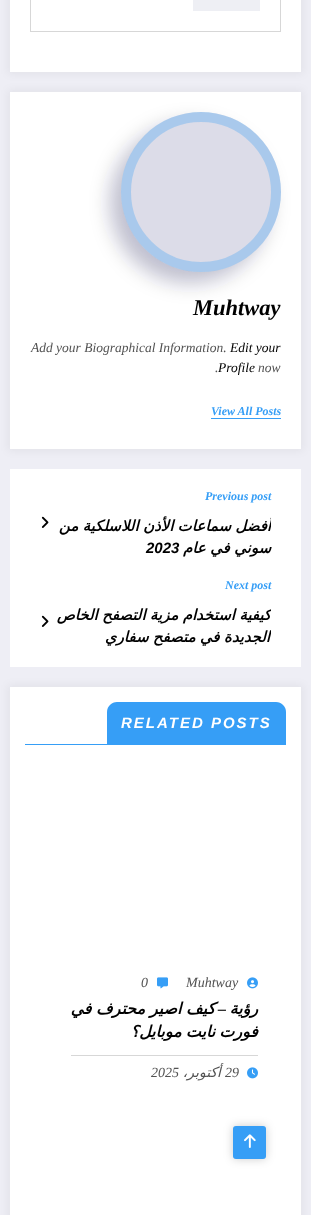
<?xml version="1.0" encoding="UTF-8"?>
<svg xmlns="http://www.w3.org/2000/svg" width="311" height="1215">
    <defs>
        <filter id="blur1" x="-50%" y="-200%" width="200%" height="500%"><feGaussianBlur stdDeviation="4"/></filter>
        <filter id="blur2" x="-50%" y="-200%" width="200%" height="500%"><feGaussianBlur stdDeviation="10"/></filter>
        <clipPath id="clip1"><rect x="40" y="515" width="231" height="43"/></clipPath>
        <clipPath id="clip2"><rect x="55" y="604" width="216" height="43"/></clipPath>
        <filter id="blur3" x="-50%" y="-200%" width="200%" height="500%"><feGaussianBlur stdDeviation="5"/></filter>
    </defs>
    <rect width="100%" height="100%" fill="#EEEEF5"/>
    <rect x="8" y="-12" width="295" height="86" fill="#171723" fill-opacity="0.05" filter="url(#blur1)"/>
    <rect x="10" y="0" width="291" height="72" fill="#FFFFFF"/>
    <rect x="30.5" y="-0.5" width="250" height="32" fill="none" stroke="#D7D7D7"/>
    <rect x="193" y="0" width="67" height="11" fill="#EEEFF4"/>
    <rect x="8" y="90" width="295" height="361" fill="#171723" fill-opacity="0.05" filter="url(#blur1)"/>
    <rect x="10" y="92" width="291" height="357" fill="#FFFFFF"/>
    <rect x="110" y="123" width="160" height="160" rx="80" fill="#040836" fill-opacity="0.25" filter="url(#blur2)"/>
    <circle cx="201" cy="192" r="80" fill="#DCDCE8"/>
    <circle cx="201" cy="192" r="75" fill="none" stroke="#369EF6" stroke-opacity="0.3" stroke-width="10"/>
    <text x="193" y="315" font-family="Liberation Serif" font-size="22.5" font-weight="700" font-style="italic" fill="#000000">Muhtway</text>
    <text x="230" y="352" font-family="Liberation Serif" font-size="13.5" font-style="italic" fill="#000000">Edit your</text>
    <text x="31" y="352" font-family="Liberation Serif" font-size="13.5" font-style="italic" fill="#525252">Add your Biographical Information.</text>
    <text x="258" y="372" font-family="Liberation Serif" font-size="13.5" font-style="italic" fill="#525252">now</text>
    <text x="218" y="372" font-family="Liberation Serif" font-size="13.5" font-style="italic" fill="#000000">Profile</text>
    <text x="215" y="372" font-family="Liberation Serif" font-size="13.5" font-style="italic" fill="#525252">.</text>
    <rect x="211" y="418" width="70" height="1" fill="#369EF6"/>
    <text x="211" y="415" font-family="Liberation Serif" font-size="12" font-weight="700" font-style="italic" fill="#369EF6">View All Posts</text>
    <rect x="10" y="469" width="291" height="198" fill="#FFFFFF"/>
    <text x="205" y="500" font-family="Liberation Serif" font-size="12" font-weight="700" font-style="italic" fill="#369EF6">Previous post</text>
    <g clip-path="url(#clip1)">
        <text x="271" y="531" word-spacing="-0.5" font-family="DejaVu Sans" font-size="15" font-weight="700" font-style="italic" direction="rtl" fill="#000000">أفضل سماعات الأذن اللاسلكية من</text>
    </g>
    <text x="271" y="553" word-spacing="-0.5" font-family="DejaVu Sans" font-size="15" font-weight="700" font-style="italic" direction="rtl" fill="#000000">سوني في عام</text>
    <text x="146" y="553" font-family="Liberation Sans" font-size="15" font-weight="700" font-style="italic" fill="#000000">2023</text>
    <image x="41" y="516" width="8" height="12" href="img_01.png"/>
    <text x="225" y="589" font-family="Liberation Serif" font-size="12" font-weight="700" font-style="italic" fill="#369EF6">Next post</text>
    <g clip-path="url(#clip2)">
        <text x="271" y="620" word-spacing="-0.5" font-family="DejaVu Sans" font-size="15" font-weight="700" font-style="italic" direction="rtl" fill="#000000">كيفية استخدام مزية التصفح الخاص</text>
        <text x="270" y="642" word-spacing="-0.5" font-family="DejaVu Sans" font-size="15" font-weight="700" font-style="italic" direction="rtl" fill="#000000">الجديدة في متصفح سفاري</text>
    </g>
    <image x="41" y="615" width="8" height="12" href="img_01.png"/>
    <rect x="8" y="685" width="295" height="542" fill="#171723" fill-opacity="0.05" filter="url(#blur1)"/>
    <rect x="10" y="687" width="291" height="528" fill="#FFFFFF"/>
    <rect x="25" y="744" width="261" height="1" fill="#369EF6"/>
    <path d="M 117 702 H 276 C 281.5 702 286 706.5 286 712 V 744 H 107 V 712 C 107 706.5 111.5 702 117 702 Z" fill="#369EF6"/>
    <text x="121" y="728" font-family="Liberation Sans" font-size="15" font-weight="700" font-style="italic" letter-spacing="2" fill="#FFFFFF">RELATED POSTS</text>
    <rect x="71" y="1055" width="187" height="1" fill="#D7D7D7"/>
    <image x="247" y="977" width="11" height="12" href="img_02.png"/>
    <text x="186" y="987" font-family="Liberation Serif" font-size="14" font-style="italic" fill="#525252">Muhtway</text>
    <image x="157" y="977" width="11" height="12" href="img_03.png"/>
    <text x="141" y="987" font-family="Liberation Serif" font-size="14" font-style="italic" fill="#525252">0</text>
    <text x="258" y="1014" font-family="DejaVu Sans" font-size="16" font-weight="700" font-style="italic" direction="rtl" fill="#000000">رؤية</text>
    <text x="215" y="1014" word-spacing="-0.5" font-family="DejaVu Sans" font-size="16" font-weight="700" font-style="italic" direction="rtl" fill="#000000">كيف اصير محترف في</text>
    <text x="226" y="1014" font-family="Liberation Serif" font-size="16" font-weight="700" font-style="italic" direction="rtl" fill="#000000">–</text>
    <text x="258" y="1037" word-spacing="-1" font-family="DejaVu Sans" font-size="16" font-weight="700" font-style="italic" direction="rtl" fill="#000000">فورت نايت موبايل؟</text>
    <image x="247" y="1067" width="11" height="12" href="img_04.png"/>
    <text x="225" y="1077" font-family="Liberation Serif" font-size="14" font-style="italic" fill="#525252">29</text>
    <text x="221" y="1077" font-family="DejaVu Sans" font-size="14" font-style="italic" direction="rtl" fill="#525252">أكتوبر،</text>
    <text x="151" y="1077" font-family="Liberation Serif" font-size="14" font-style="italic" fill="#525252">2025</text>
    <rect x="233" y="1126" width="33" height="33" rx="3" fill="#000000" fill-opacity="0.2" filter="url(#blur3)"/>
    <rect x="233" y="1126" width="33" height="33" rx="3" fill="#369EF6"/>
    <image x="244" y="1134" width="12" height="14" href="img_05.png"/>
</svg>
